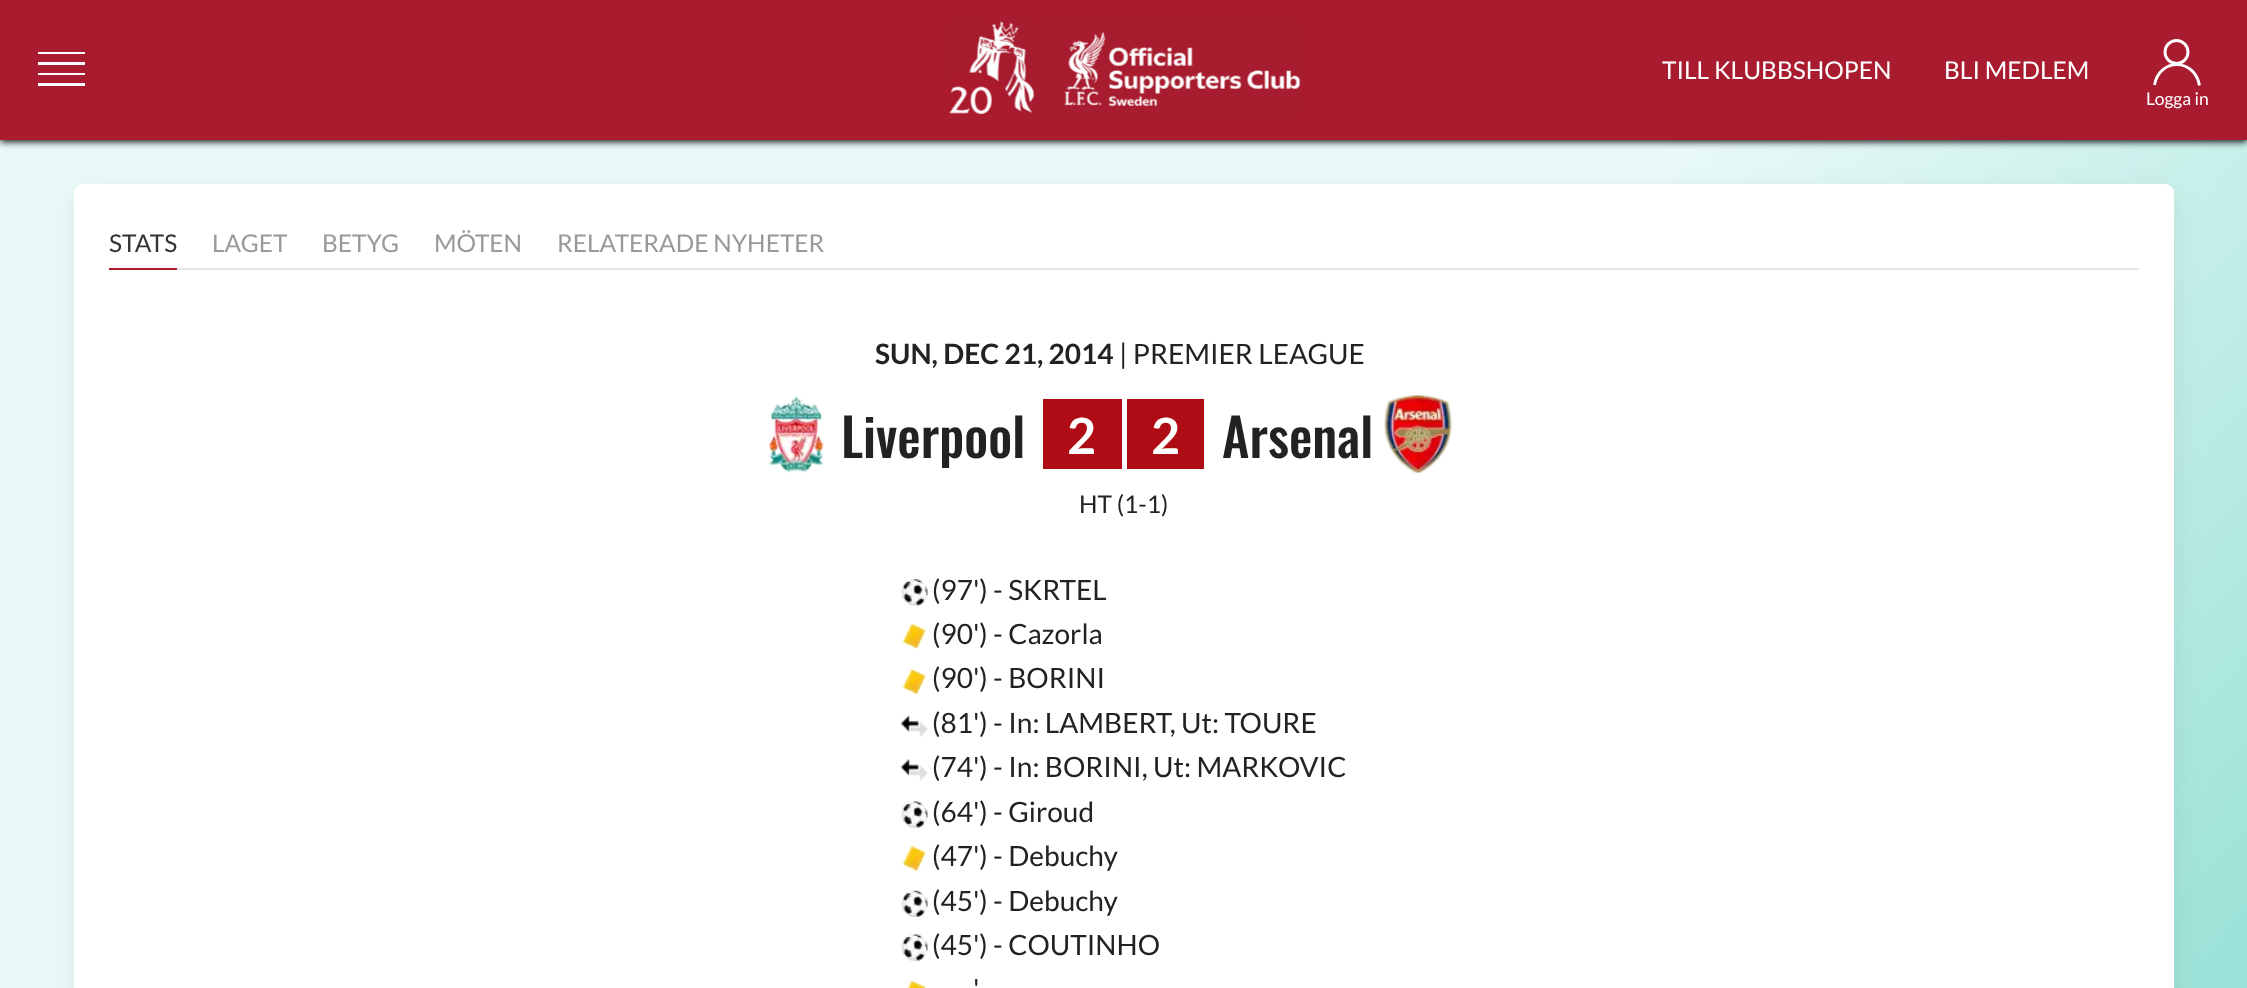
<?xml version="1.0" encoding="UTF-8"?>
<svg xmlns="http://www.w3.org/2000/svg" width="2247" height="988">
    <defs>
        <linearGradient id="g1" gradientUnits="userSpaceOnUse" x1="-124" y1="138" x2="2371" y2="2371"><stop offset="0.4" stop-color="#EAFAF8"/><stop offset="1" stop-color="#48C9B5"/></linearGradient>
        <filter id="blur1" x="-50%" y="-200%" width="200%" height="500%"><feGaussianBlur stdDeviation="3.5"/></filter>
        <filter id="blur2" x="-50%" y="-200%" width="200%" height="500%"><feGaussianBlur stdDeviation="13"/></filter>
    </defs>
    <rect width="100%" height="100%" fill="#FFFFFF"/>
    <rect x="0" y="140" width="2247" height="848" fill="url(#g1)"/>
    <rect x="0" y="2" width="2247" height="140" fill="#000000" fill-opacity="0.9" filter="url(#blur1)"/>
    <rect x="0" y="0" width="2247" height="140" fill="#A91C30"/>
    <rect x="38" y="52" width="47" height="2" fill="#FFFFFF"/>
    <rect x="38" y="62" width="47" height="3" fill="#FFFFFF"/>
    <rect x="38" y="73" width="47" height="2" fill="#FFFFFF"/>
    <rect x="38" y="83" width="47" height="3" fill="#FFFFFF"/>
    <image x="946" y="21" width="354" height="94" href="img_01.png"/>
    <text x="1662" y="79" font-family="Lato" font-size="24.5" fill="#FFFFFF">TILL KLUBBSHOPEN</text>
    <text x="1944" y="79" font-family="Lato" font-size="24.5" fill="#FFFFFF">BLI MEDLEM</text>
    <circle cx="2176.5" cy="52" r="11.5" fill="none" stroke="#FFFFFF" stroke-width="2.9"/>
    <path d="M 2154.5 85 C 2159.5 57.5 2194.5 58 2199.5 85.5" fill="none" stroke="#FFFFFF" stroke-width="2.9"/>
    <text x="2146" y="105" font-family="Lato" font-size="17.5" fill="#FFFFFF">Logga in</text>
    <rect x="74" y="193" width="2100" height="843" rx="9" fill="#000000" fill-opacity="0.08" filter="url(#blur2)"/>
    <rect x="74" y="184" width="2100" height="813" rx="9" fill="#FFFFFF"/>
    <rect x="109" y="268" width="68" height="2" fill="#A91C30"/>
    <text x="109" y="252" font-family="Lato" font-size="24.5" fill="#333333">STATS</text>
    <text x="212" y="252" font-family="Lato" font-size="24.5" fill="#999999">LAGET</text>
    <text x="322" y="252" font-family="Lato" font-size="24.5" fill="#999999">BETYG</text>
    <text x="434" y="252" font-family="Lato" font-size="24.5" fill="#999999">MÖTEN</text>
    <text x="557" y="252" font-family="Lato" font-size="24.5" fill="#999999">RELATERADE NYHETER</text>
    <rect x="177" y="268" width="1962" height="2" fill="#E5E5E5"/>
    <text x="875" y="364" font-family="Lato" font-size="28" font-weight="700" fill="#222222">SUN, DEC 21, 2014</text>
    <text x="1119" y="364" font-family="Lato" font-size="28" fill="#222222">| PREMIER LEAGUE</text>
    <image x="769" y="395" width="55" height="78" href="img_02.png"/>
    <text x="841" y="458" font-family="Oswald" font-size="52.5" font-weight="500" fill="#222222">Liverpool</text>
    <rect x="1043" y="399" width="79" height="70" fill="#B00C16"/>
    <text x="1067" y="454" font-family="Lato" font-size="50" font-weight="700" fill="#FFFFFF">2</text>
    <rect x="1127" y="399" width="77" height="70" fill="#B00C16"/>
    <text x="1151" y="454" font-family="Lato" font-size="50" font-weight="700" fill="#FFFFFF">2</text>
    <text x="1222" y="458" font-family="Oswald" font-size="52.5" font-weight="500" fill="#222222">Arsenal</text>
    <image x="1384" y="395" width="69" height="78" href="img_03.png"/>
    <text x="1079" y="513" font-family="Lato" font-size="24.5" fill="#222222">HT (1-1)</text>
    <image x="901" y="579" width="27" height="27" href="img_04.png"/>
    <text x="932" y="600" font-family="Lato" font-size="28" fill="#222222">(97') - SKRTEL</text>
    <image x="902" y="623" width="25" height="27" href="img_05.png"/>
    <text x="932" y="644" font-family="Lato" font-size="28" fill="#222222">(90') - Cazorla</text>
    <image x="902" y="668" width="25" height="27" href="img_06.png"/>
    <text x="932" y="688" font-family="Lato" font-size="28" fill="#222222">(90') - BORINI</text>
    <image x="901" y="715" width="27" height="22" href="img_07.png"/>
    <text x="932" y="733" font-family="Lato" font-size="28" fill="#222222">(81') - In: LAMBERT, Ut: TOURE</text>
    <image x="901" y="759" width="27" height="22" href="img_08.png"/>
    <text x="932" y="777" font-family="Lato" font-size="28" fill="#222222">(74') - In: BORINI, Ut: MARKOVIC</text>
    <image x="901" y="801" width="27" height="27" href="img_09.png"/>
    <text x="932" y="822" font-family="Lato" font-size="28" fill="#222222">(64') - Giroud</text>
    <image x="902" y="845" width="25" height="27" href="img_10.png"/>
    <text x="932" y="866" font-family="Lato" font-size="28" fill="#222222">(47') - Debuchy</text>
    <image x="901" y="890" width="27" height="27" href="img_11.png"/>
    <text x="932" y="911" font-family="Lato" font-size="28" fill="#222222">(45') - Debuchy</text>
    <image x="901" y="934" width="27" height="27" href="img_09.png"/>
    <text x="932" y="955" font-family="Lato" font-size="28" fill="#222222">(45') - COUTINHO</text>
    <image x="907" y="980" width="20" height="8" href="img_12.png"/>
    <text x="973" y="999" font-family="Lato" font-size="28" fill="#222222">'</text>
</svg>
